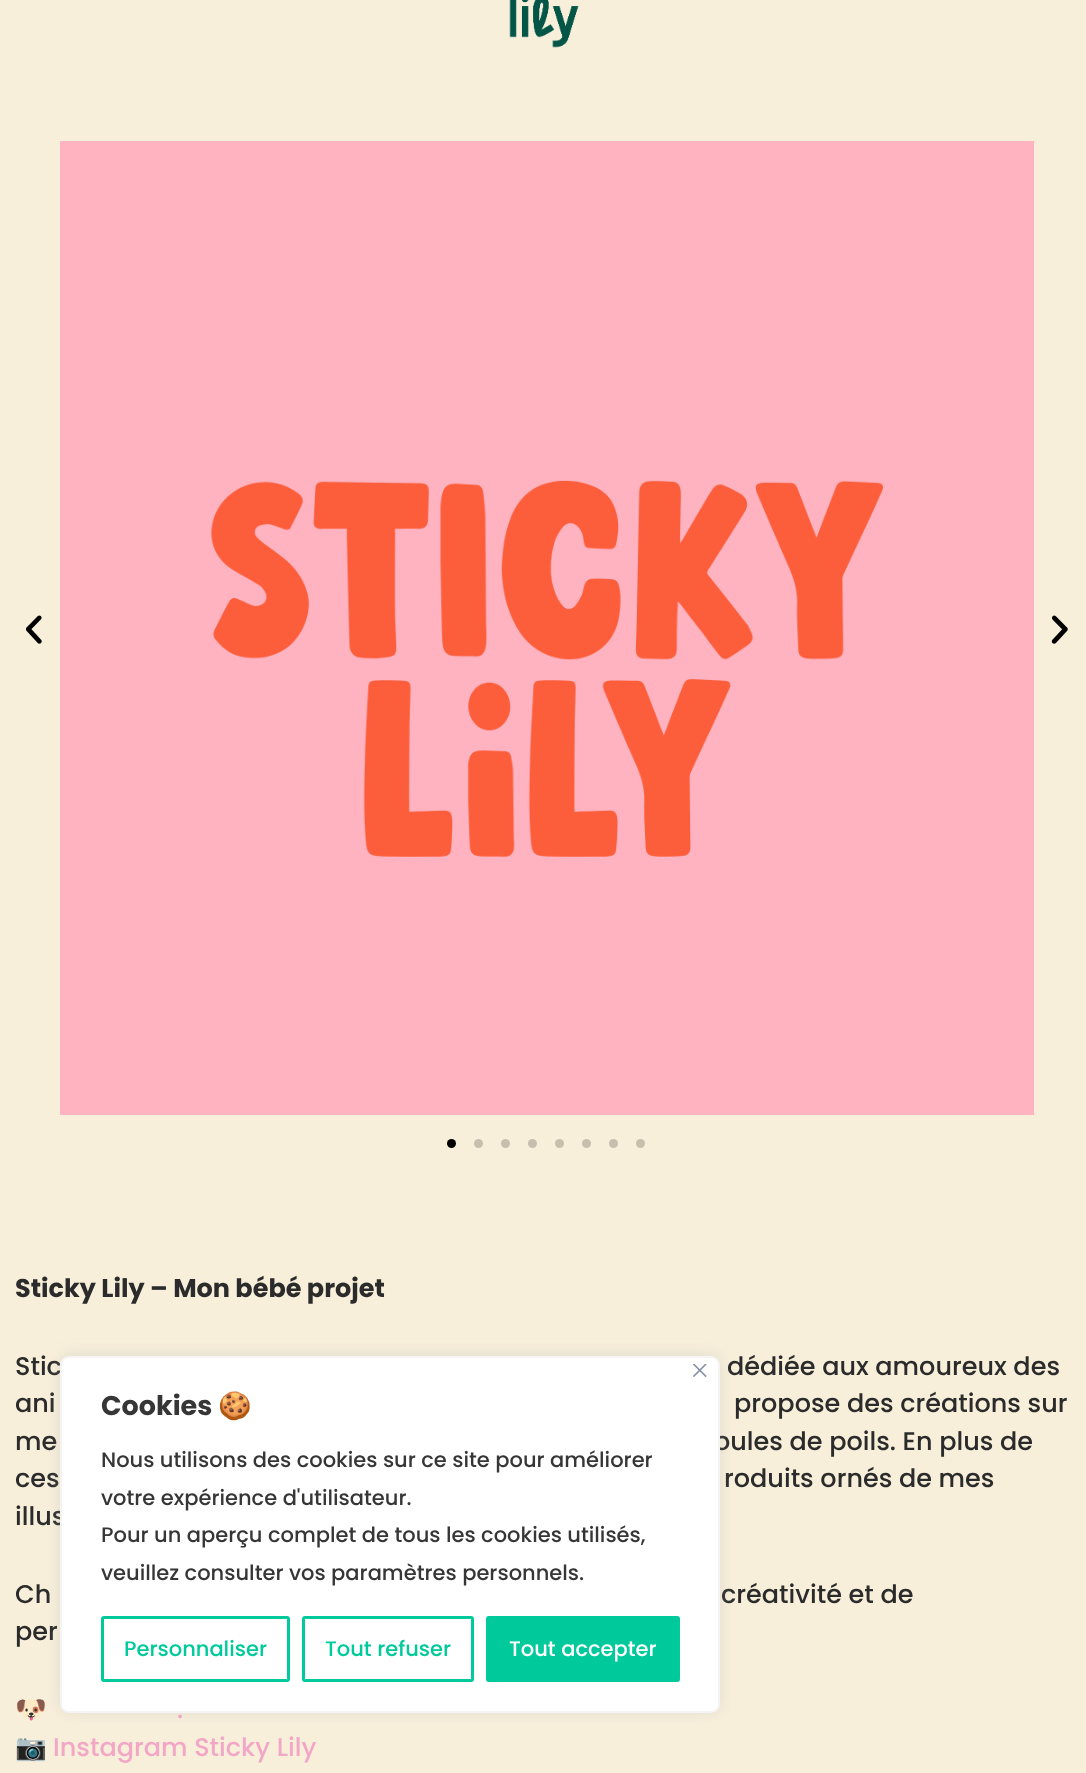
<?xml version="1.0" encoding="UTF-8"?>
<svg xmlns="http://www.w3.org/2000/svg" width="1086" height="1773">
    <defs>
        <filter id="blur1" x="-50%" y="-200%" width="200%" height="500%"><feGaussianBlur stdDeviation="7.5"/></filter>
    </defs>
    <rect width="100%" height="100%" fill="#F7EFDA"/>
    <image x="509" y="0" width="70" height="48" href="img_01.png"/>
    <image x="26" y="615" width="16" height="29" href="img_02.png"/>
    <image x="60" y="141" width="974" height="974" href="img_03.png"/>
    <image x="1051" y="615" width="17" height="29" href="img_04.png"/>
    <circle cx="451.5" cy="1143.5" r="4.5" fill="#000000"/>
    <circle cx="478.5" cy="1143.5" r="4.5" fill="#C6BFAE"/>
    <circle cx="505.5" cy="1143.5" r="4.5" fill="#C6BFAE"/>
    <circle cx="532.5" cy="1143.5" r="4.5" fill="#C6BFAE"/>
    <circle cx="559.5" cy="1143.5" r="4.5" fill="#C6BFAE"/>
    <circle cx="586.5" cy="1143.5" r="4.5" fill="#C6BFAE"/>
    <circle cx="613.5" cy="1143.5" r="4.5" fill="#C6BFAE"/>
    <circle cx="640.5" cy="1143.5" r="4.5" fill="#C6BFAE"/>
    <text x="15" y="1297" font-family="Poppins" font-size="25.5" font-weight="700" fill="#2B2B2B">Sticky Lily – Mon bébé projet</text>
    <text x="15" y="1375" font-family="Poppins" font-size="25.5" font-weight="500" fill="#2B2B2B">Stic</text>
    <text x="727" y="1375" font-family="Poppins" font-size="25.5" font-weight="500" fill="#2B2B2B">dédiée aux amoureux des</text>
    <text x="15" y="1412" font-family="Poppins" font-size="25.5" font-weight="500" fill="#2B2B2B">ani</text>
    <text x="734" y="1412" font-family="Poppins" font-size="25.5" font-weight="500" fill="#2B2B2B">propose des créations sur</text>
    <text x="15" y="1450" font-family="Poppins" font-size="25.5" font-weight="500" fill="#2B2B2B">me</text>
    <text x="714" y="1450" font-family="Poppins" font-size="25.5" font-weight="500" fill="#2B2B2B">oules de poils. En plus de</text>
    <text x="15" y="1487" font-family="Poppins" font-size="25.5" font-weight="500" fill="#2B2B2B">ces</text>
    <text x="724" y="1487" font-family="Poppins" font-size="25.5" font-weight="500" fill="#2B2B2B">roduits ornés de mes</text>
    <text x="15" y="1525" font-family="Poppins" font-size="25.5" font-weight="500" fill="#2B2B2B">illus</text>
    <text x="15" y="1603" font-family="Poppins" font-size="25.5" font-weight="500" fill="#2B2B2B">Ch</text>
    <text x="721" y="1603" font-family="Poppins" font-size="25.5" font-weight="500" fill="#2B2B2B">créativité et de</text>
    <text x="15" y="1640" font-family="Poppins" font-size="25.5" font-weight="500" fill="#2B2B2B">per</text>
    <text x="15" y="1718" font-family="Noto Color Emoji" font-size="25.5" fill="#F2A7C6">🐶</text>
    <text x="177" y="1718" font-family="Poppins" font-size="25.5" font-weight="500" fill="#F2A7C6">.</text>
    <text x="15" y="1756" font-family="Noto Color Emoji" font-size="25.5" fill="#F2A7C6">📷</text>
    <text x="53" y="1756" font-family="Poppins" font-size="25.5" font-weight="500" fill="#F2A7C6">Instagram Sticky Lily</text>
    <rect x="60" y="1355" width="660" height="357" rx="9" fill="#ACABAB" fill-opacity="0.3" filter="url(#blur1)"/>
    <rect x="61" y="1357" width="658" height="355" rx="8" fill="#FFFFFF" stroke="#F4F4F4" stroke-width="2"/>
    <image x="693" y="1364" width="14" height="13" href="img_05.png"/>
    <text x="101" y="1415" font-family="Poppins" font-size="27" font-weight="700" fill="#363636">Cookies</text>
    <text x="218" y="1415" font-family="Noto Color Emoji" font-size="27" font-weight="700" fill="#363636">🍪</text>
    <text font-family="Poppins" font-size="21" font-weight="500" fill="#363636">
        <tspan x="101" y="1467">Nous utilisons des cookies sur ce site pour améliorer</tspan>
        <tspan x="101" y="1505">votre expérience d'utilisateur.</tspan>
        <tspan x="101" y="1542">Pour un aperçu complet de tous les cookies utilisés,</tspan>
        <tspan x="101" y="1580">veuillez consulter vos paramètres personnels.</tspan>
    </text>
    <rect x="102.5" y="1617.5" width="186" height="63" rx="1.5" fill="none" stroke="#00CA9B" stroke-width="3"/>
    <text x="124" y="1656" font-family="Poppins" font-size="21" font-weight="500" fill="#00CA9B">Personnaliser</text>
    <rect x="303.5" y="1617.5" width="169" height="63" rx="1.5" fill="none" stroke="#00CA9B" stroke-width="3"/>
    <text x="325" y="1656" font-family="Poppins" font-size="21" font-weight="500" fill="#00CA9B">Tout refuser</text>
    <rect x="487.5" y="1617.5" width="191" height="63" rx="1.5" fill="#00CA9B" stroke="#00CA9B" stroke-width="3"/>
    <text x="509" y="1656" font-family="Poppins" font-size="21" font-weight="500" fill="#FFFFFF">Tout accepter</text>
</svg>
